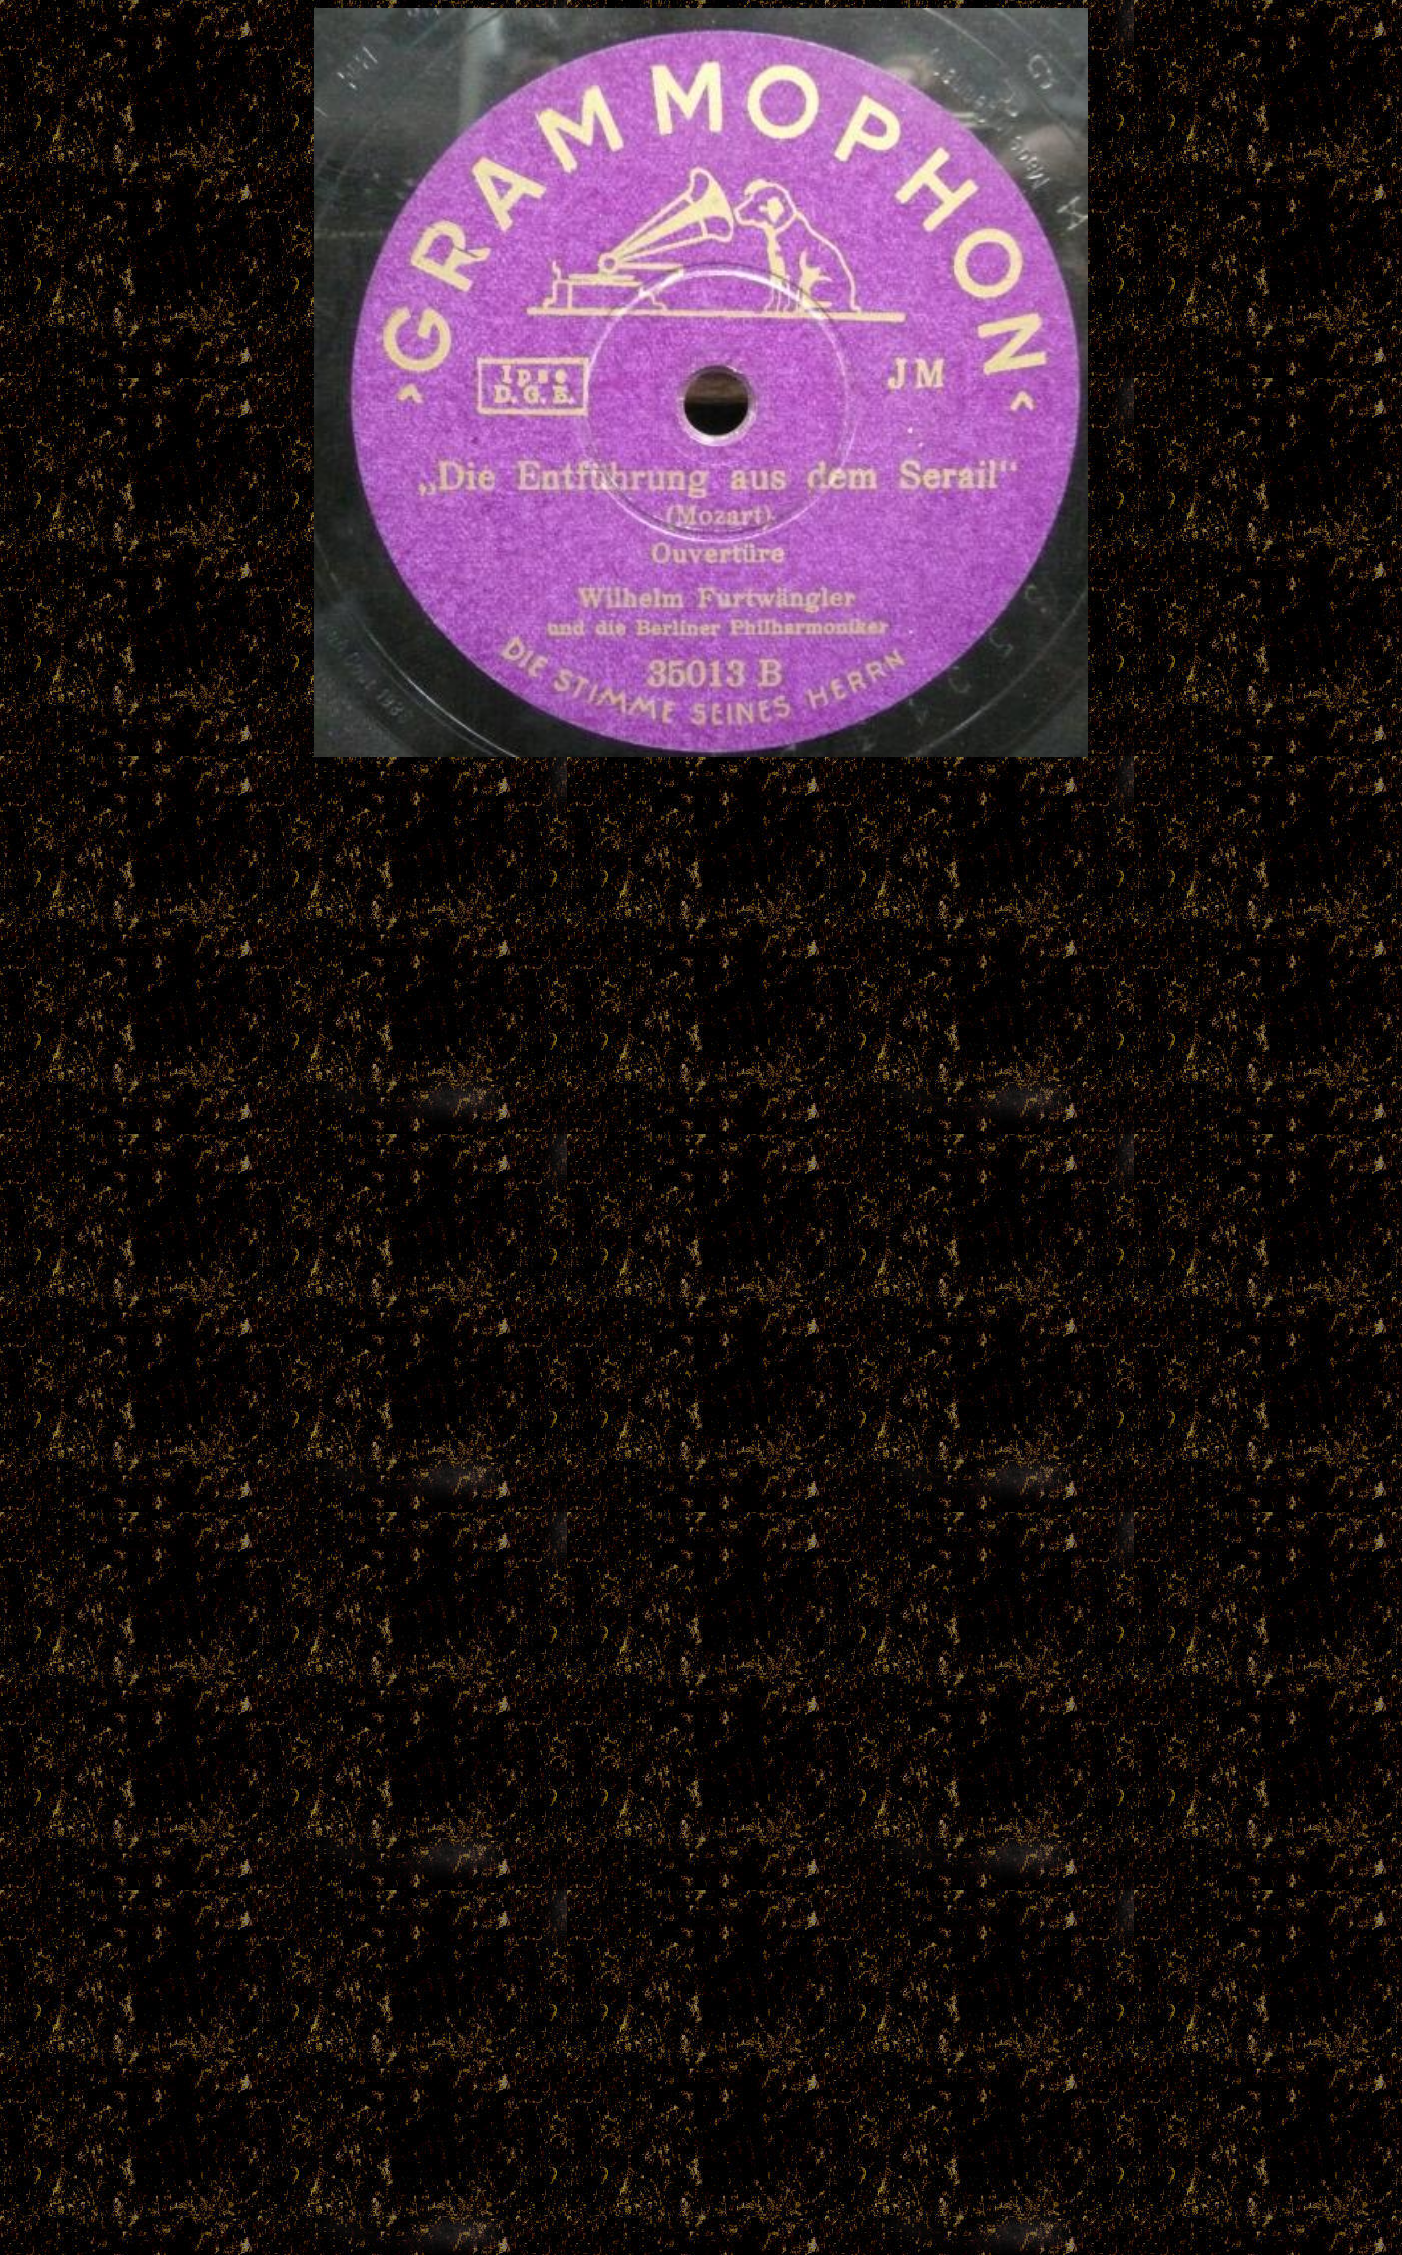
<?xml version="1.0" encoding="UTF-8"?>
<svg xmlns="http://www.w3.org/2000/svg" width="1402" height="2255">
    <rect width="100%" height="100%" fill="#FFFFFF"/>
    <image x="0" y="0" width="1402" height="2255" href="img_01.png"/>
    <image x="314" y="8" width="774" height="749" href="img_02.png"/>
</svg>
